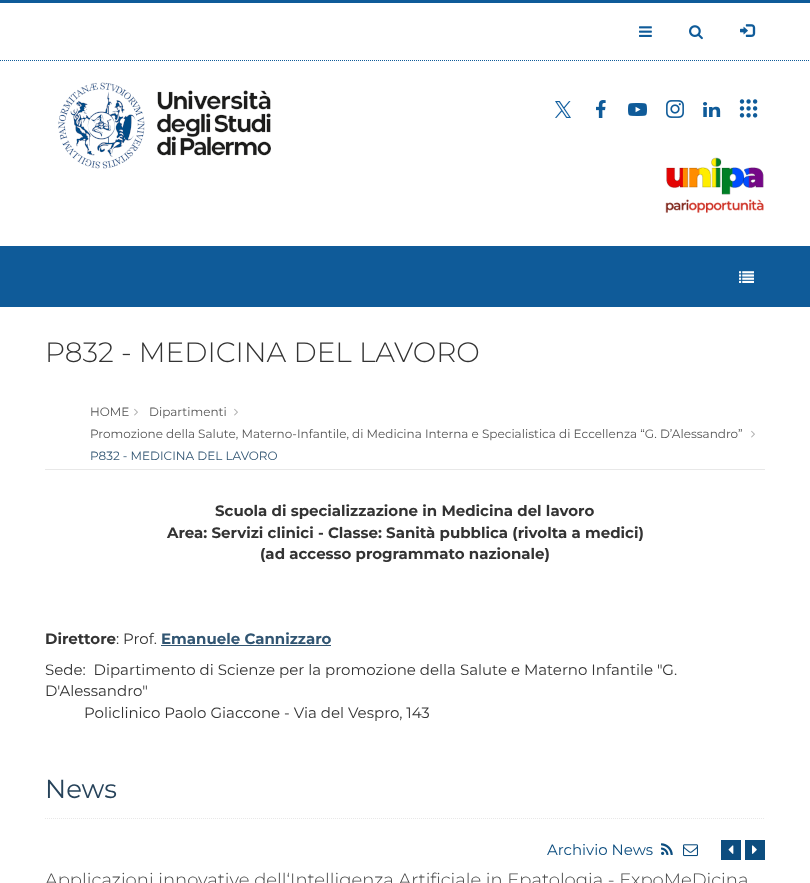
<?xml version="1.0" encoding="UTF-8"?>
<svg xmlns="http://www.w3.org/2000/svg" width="810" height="883">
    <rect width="100%" height="100%" fill="#FFFFFF"/>
    <rect x="0" y="0" width="810" height="3" fill="#0F5B99"/>
    <path d="M 0 60.5 H 810" fill="none" stroke="#0F5B99" stroke-dasharray="1 1"/>
    <image x="639" y="26" width="13" height="11" href="img_01.png"/>
    <image x="689" y="25" width="14" height="15" href="img_02.png"/>
    <image x="740" y="24" width="16" height="13" href="img_03.png"/>
    <image x="58" y="82" width="213" height="87" href="img_04.png"/>
    <image x="555" y="101" width="16" height="17" href="img_05.png"/>
    <image x="596" y="100" width="10" height="18" href="img_06.png"/>
    <image x="628" y="103" width="19" height="13" href="img_07.png"/>
    <image x="666" y="100" width="18" height="18" href="img_08.png"/>
    <image x="703" y="102" width="18" height="15" href="img_09.png"/>
    <image x="739" y="99" width="19" height="19" href="img_10.png"/>
    <image x="665" y="157" width="99" height="56" href="img_11.png"/>
    <rect x="0" y="246" width="810" height="61" fill="#0F5B99"/>
    <image x="739" y="271" width="15" height="12" href="img_12.png"/>
    <rect x="45" y="469" width="720" height="1" fill="#E8E8E8"/>
    <text x="45" y="362" font-family="Montserrat" font-size="28" font-weight="300" fill="#333333">P832 - MEDICINA DEL LAVORO</text>
    <text x="90" y="416" font-family="Montserrat" font-size="12" fill="#555555">HOME</text>
    <image x="134" y="408" width="4" height="8" href="img_13.png"/>
    <text x="149" y="416" font-family="Montserrat" font-size="12" fill="#555555">Dipartimenti</text>
    <image x="234" y="408" width="4" height="8" href="img_13.png"/>
    <text x="90" y="438" font-family="Montserrat" font-size="12" fill="#555555">Promozione della Salute, Materno-Infantile, di Medicina Interna e Specialistica di Eccellenza “G. D’Alessandro”</text>
    <image x="751" y="430" width="4" height="8" href="img_13.png"/>
    <text x="90" y="460" font-family="Montserrat" font-size="12" fill="#315572">P832 - MEDICINA DEL LAVORO</text>
    <text x="215" y="516" font-family="Montserrat" font-size="15" font-weight="700" fill="#333333">Scuola di specializzazione in Medicina del lavoro</text>
    <text x="167" y="538" font-family="Montserrat" font-size="15" font-weight="700" fill="#333333">Area: Servizi clinici - Classe: Sanità pubblica (rivolta a medici)</text>
    <text x="260" y="559" font-family="Montserrat" font-size="15" font-weight="700" fill="#333333">(ad accesso programmato nazionale)</text>
    <text x="45" y="644" font-family="Montserrat" font-size="15" font-weight="700" fill="#333333">Direttore</text>
    <text x="116" y="644" font-family="Montserrat" font-size="15" fill="#333333">: Prof.</text>
    <text x="161" y="644" font-family="Montserrat" font-size="15" font-weight="700" fill="#315572">Emanuele Cannizzaro</text>
    <rect x="161" y="645" width="170" height="1" fill="#315572"/>
    <text font-family="Montserrat" font-size="15" fill="#333333" xml:space="preserve"><tspan x="45" y="675">Sede:  Dipartimento di Scienze per la promozione della Salute e Materno Infantile "G.</tspan><tspan x="45" y="696">D'Alessandro"</tspan></text>
    <text x="84" y="718" font-family="Montserrat" font-size="15" fill="#333333">Policlinico Paolo Giaccone - Via del Vespro, 143</text>
    <path d="M 45 818.5 H 765" fill="none" stroke="#E8E8E8" stroke-dasharray="1 1"/>
    <text x="45" y="798" font-family="Montserrat" font-size="26" fill="#27435A">News</text>
    <text x="547" y="855" font-family="Montserrat" font-size="15" fill="#0C4D7F">Archivio News</text>
    <image x="661" y="843" width="12" height="12" href="img_14.png"/>
    <image x="683" y="844" width="15" height="13" href="img_15.png"/>
    <rect x="721" y="840" width="20" height="20" fill="#0C4D7F"/>
    <image x="728" y="845" width="6" height="9" href="img_16.png"/>
    <rect x="745" y="840" width="20" height="20" fill="#0C4D7F"/>
    <image x="752" y="845" width="5" height="9" href="img_17.png"/>
    <text x="45" y="886" font-family="Montserrat" font-size="18" font-weight="300" fill="#444444">Applicazioni innovative dell‘Intelligenza Artificiale in Epatologia - ExpoMeDicina</text>
</svg>
